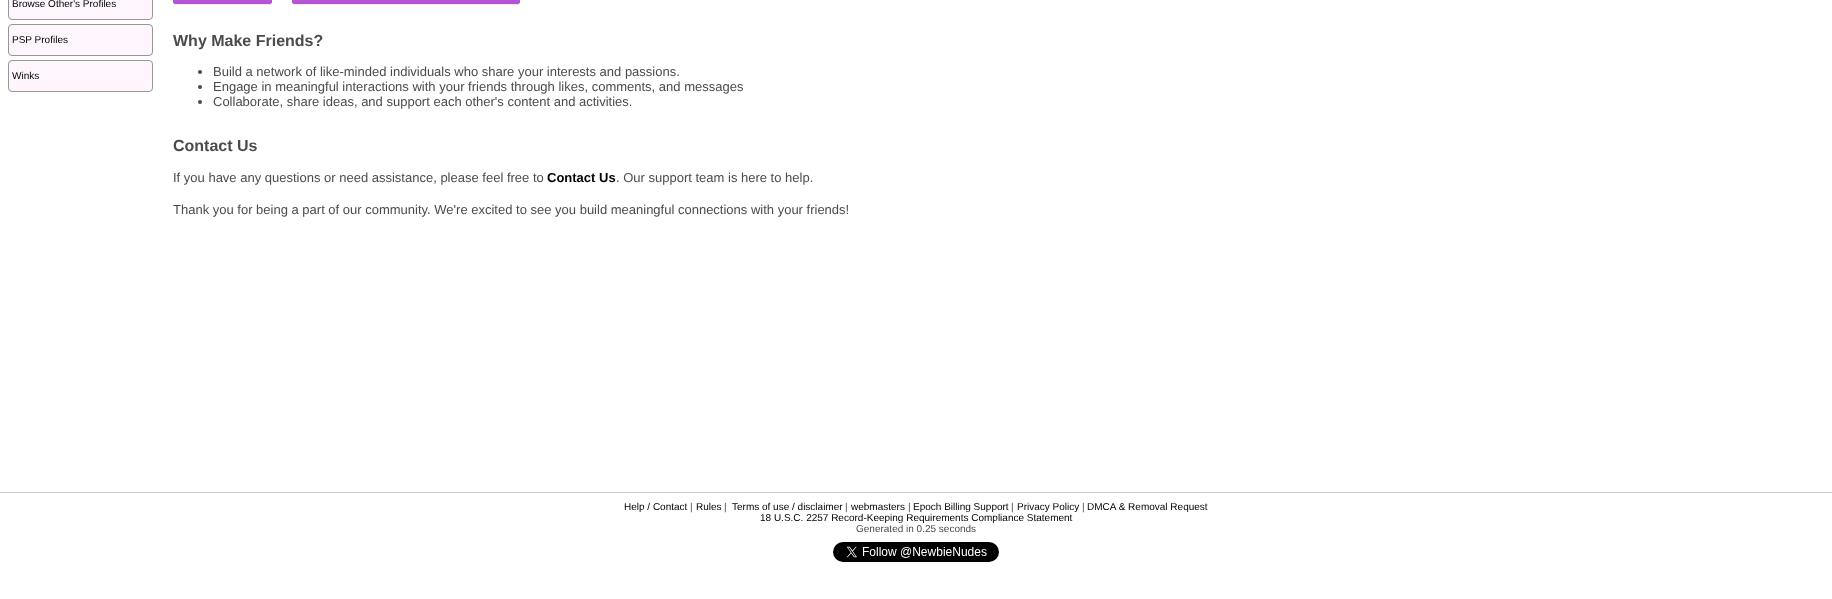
<?xml version="1.0" encoding="UTF-8"?>
<svg xmlns="http://www.w3.org/2000/svg" width="1832" height="599">
    <defs>
        <filter id="blur1" x="-50%" y="-200%" width="200%" height="500%"><feGaussianBlur stdDeviation="0.5"/></filter>
        <linearGradient id="g1" gradientUnits="userSpaceOnUse" x1="223" y1="-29" x2="223" y2="3"><stop offset="0" stop-color="#CA84E1"/><stop offset="1" stop-color="#B553D5"/></linearGradient>
        <linearGradient id="g2" gradientUnits="userSpaceOnUse" x1="406" y1="-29" x2="406" y2="3"><stop offset="0" stop-color="#CA84E1"/><stop offset="1" stop-color="#B553D5"/></linearGradient>
    </defs>
    <rect width="100%" height="100%" fill="#FFFFFF"/>
    <rect x="8.5" y="-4.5" width="144" height="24" rx="3.5" fill="#FFF6FD" stroke="#969696"/>
    <text x="12" y="7" font-family="Liberation Sans" font-size="10" fill="#000000">Browse Other's Profiles</text>
    <rect x="8.5" y="24.5" width="144" height="31" rx="3.5" fill="#FFF6FD" stroke="#969696"/>
    <text x="12" y="43" font-family="Liberation Sans" font-size="10" fill="#000000">PSP Profiles</text>
    <rect x="8.5" y="60.5" width="144" height="31" rx="3.5" fill="#FFF6FD" stroke="#969696"/>
    <text x="12" y="79" font-family="Liberation Sans" font-size="10" fill="#000000">Winks</text>
    <rect x="173" y="-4" width="99" height="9" rx="2" fill="#000000" fill-opacity="0.07" filter="url(#blur1)"/>
    <rect x="173" y="0" width="99" height="3" fill="url(#g1)"/>
    <rect x="173.5" y="-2.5" width="98" height="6" rx="1.5" fill="none" stroke="#B553D5"/>
    <rect x="292" y="-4" width="228" height="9" rx="2" fill="#000000" fill-opacity="0.07" filter="url(#blur1)"/>
    <rect x="292" y="0" width="228" height="3" fill="url(#g2)"/>
    <rect x="292.5" y="-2.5" width="227" height="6" rx="1.5" fill="none" stroke="#B553D5"/>
    <text x="173" y="46" font-family="Liberation Sans" font-size="16" font-weight="700" fill="#4B4B4B">Why Make Friends?</text>
    <circle cx="200" cy="72" r="2" fill="#4B4B4B"/>
    <text x="213" y="76" font-family="Liberation Sans" font-size="13" fill="#4B4B4B">Build a network of like-minded individuals who share your interests and passions.</text>
    <circle cx="200" cy="87" r="2" fill="#4B4B4B"/>
    <text x="213" y="91" font-family="Liberation Sans" font-size="13" fill="#4B4B4B">Engage in meaningful interactions with your friends through likes, comments, and messages</text>
    <circle cx="200" cy="102" r="2" fill="#4B4B4B"/>
    <text x="213" y="106" font-family="Liberation Sans" font-size="13" fill="#4B4B4B">Collaborate, share ideas, and support each other's content and activities.</text>
    <text x="173" y="151" font-family="Liberation Sans" font-size="16" font-weight="700" fill="#4B4B4B">Contact Us</text>
    <text x="173" y="182" font-family="Liberation Sans" font-size="13" fill="#4B4B4B">If you have any questions or need assistance, please feel free to</text>
    <text x="547" y="182" font-family="Liberation Sans" font-size="13" font-weight="700" fill="#000000">Contact Us</text>
    <text x="616" y="182" font-family="Liberation Sans" font-size="13" fill="#4B4B4B">. Our support team is here to help.</text>
    <text x="173" y="214" font-family="Liberation Sans" font-size="13" fill="#4B4B4B">Thank you for being a part of our community. We're excited to see you build meaningful connections with your friends!</text>
    <rect x="0" y="492" width="1832" height="1" fill="#CCCCCC"/>
    <text x="624" y="510" font-family="Liberation Sans" font-size="10" fill="#000000">Help / Contact</text>
    <text x="690" y="510" font-family="Liberation Sans" font-size="10" fill="#4B4B4B">|</text>
    <text x="696" y="510" font-family="Liberation Sans" font-size="10" fill="#000000">Rules</text>
    <text x="724" y="510" font-family="Liberation Sans" font-size="10" fill="#4B4B4B">|</text>
    <text x="732" y="510" font-family="Liberation Sans" font-size="10" fill="#000000">Terms of use / disclaimer</text>
    <text x="845" y="510" font-family="Liberation Sans" font-size="10" fill="#4B4B4B">|</text>
    <text x="851" y="510" font-family="Liberation Sans" font-size="10" fill="#000000">webmasters</text>
    <text x="908" y="510" font-family="Liberation Sans" font-size="10" fill="#4B4B4B">|</text>
    <text x="913" y="510" font-family="Liberation Sans" font-size="10" fill="#000000">Epoch Billing Support</text>
    <text x="1011" y="510" font-family="Liberation Sans" font-size="10" fill="#4B4B4B">|</text>
    <text x="1017" y="510" font-family="Liberation Sans" font-size="10" fill="#000000">Privacy Policy</text>
    <text x="1082" y="510" font-family="Liberation Sans" font-size="10" fill="#4B4B4B">|</text>
    <text x="1087" y="510" font-family="Liberation Sans" font-size="10" fill="#000000">DMCA &amp; Removal Request</text>
    <text x="760" y="521" font-family="Liberation Sans" font-size="10" fill="#000000">18 U.S.C. 2257 Record-Keeping Requirements Compliance Statement</text>
    <text x="856" y="532" font-family="Liberation Sans" font-size="10" fill="#4B4B4B">Generated in 0.25 seconds</text>
    <image x="833" y="542" width="166" height="20" href="img_01.png"/>
</svg>
